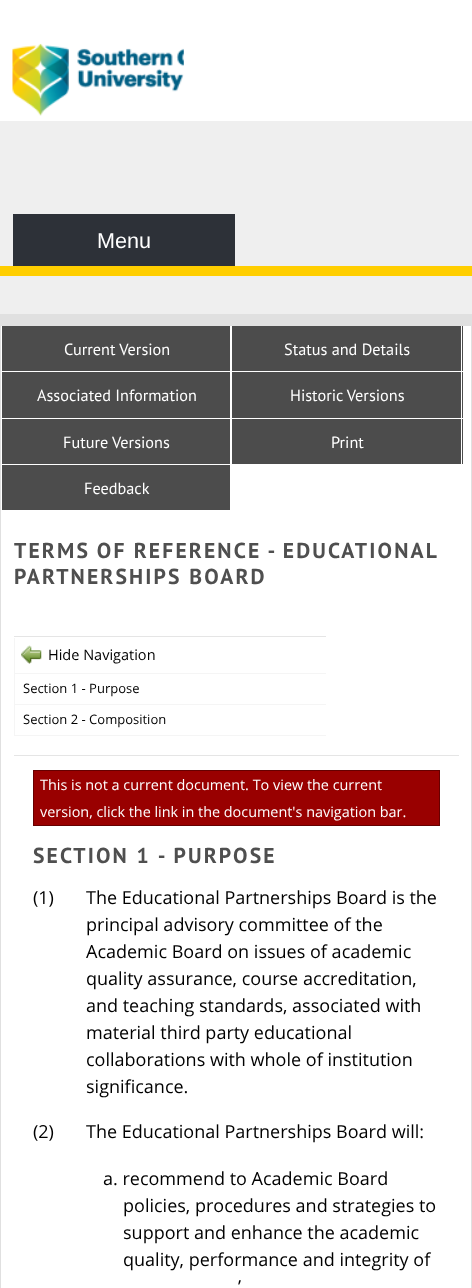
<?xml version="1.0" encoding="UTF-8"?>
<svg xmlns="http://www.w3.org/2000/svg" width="472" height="1288">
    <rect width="100%" height="100%" fill="#EFEFEF"/>
    <rect x="0" y="0" width="472" height="121" fill="#FFFFFF"/>
    <image x="12" y="43" width="172" height="73" href="img_01.png"/>
    <rect x="0" y="266" width="472" height="10" fill="#FFCE00"/>
    <rect x="13" y="214" width="222" height="52" fill="#2D3138"/>
    <text x="97" y="248" font-family="Liberation Sans" font-size="21.6" fill="#FFFFFF">Menu</text>
    <rect x="0" y="314" width="472" height="974" fill="#E0E0E0"/>
    <rect x="1" y="326" width="470" height="962" fill="#FFFFFF"/>
    <rect x="2" y="326" width="228" height="92" fill="#4C4C4C"/>
    <rect x="1" y="371" width="230" height="1" fill="#FFFFFF"/>
    <text x="64" y="355" font-family="PT Sans" font-size="16.25" fill="#FFFFFF">Current Version</text>
    <rect x="232" y="326" width="231" height="92" fill="#4C4C4C"/>
    <rect x="461" y="326" width="1" height="93" fill="#FFFFFF"/>
    <rect x="231" y="371" width="232" height="1" fill="#FFFFFF"/>
    <text x="284" y="355" font-family="PT Sans" font-size="16.25" fill="#FFFFFF">Status and Details</text>
    <text x="37" y="401" font-family="PT Sans" font-size="16.25" fill="#FFFFFF">Associated Information</text>
    <text x="290" y="401" font-family="PT Sans" font-size="16.25" fill="#FFFFFF">Historic Versions</text>
    <rect x="2" y="419" width="228" height="45" fill="#4C4C4C"/>
    <text x="63" y="448" font-family="PT Sans" font-size="16.25" fill="#FFFFFF">Future Versions</text>
    <rect x="232" y="419" width="231" height="45" fill="#4C4C4C"/>
    <rect x="461" y="419" width="1" height="46" fill="#FFFFFF"/>
    <text x="331" y="448" font-family="PT Sans" font-size="16.25" fill="#FFFFFF">Print</text>
    <rect x="2" y="465" width="228" height="45" fill="#4C4C4C"/>
    <text x="84" y="494" font-family="PT Sans" font-size="16.25" fill="#FFFFFF">Feedback</text>
    <text font-family="PT Sans" font-size="21.6" font-weight="700" letter-spacing="2.15" fill="#4F4F4F">
        <tspan x="14" y="558" word-spacing="-0.5">TERMS OF REFERENCE - EDUCATIONAL</tspan>
        <tspan x="14" y="584">PARTNERSHIPS BOARD</tspan>
    </text>
    <rect x="14" y="636" width="312" height="1" fill="#E5E5E5"/>
    <image x="21" y="645" width="21" height="19" href="img_02.png"/>
    <rect x="14" y="673" width="312" height="1" fill="#F5F5F5"/>
    <rect x="14" y="638" width="1" height="36" fill="#F5F5F5"/>
    <text x="48" y="660" font-family="Open Sans" font-size="14.5" fill="#000000">Hide Navigation</text>
    <rect x="14" y="704" width="312" height="1" fill="#F5F5F5"/>
    <rect x="14" y="674" width="1" height="31" fill="#F5F5F5"/>
    <text x="23" y="693" font-family="Open Sans" font-size="13" fill="#000000">Section 1 - Purpose</text>
    <rect x="14" y="735" width="312" height="1" fill="#F5F5F5"/>
    <rect x="14" y="705" width="1" height="31" fill="#F5F5F5"/>
    <text x="23" y="724" font-family="Open Sans" font-size="13" fill="#000000">Section 2 - Composition</text>
    <rect x="14" y="755" width="445" height="1" fill="#E5E5E5"/>
    <rect x="33.5" y="770.5" width="406" height="55" fill="#990000" stroke="#660000"/>
    <text font-family="Open Sans" font-size="14.4" fill="#FFFFFF">
        <tspan x="40" y="790">This is not a current document. To view the current</tspan>
        <tspan x="40" y="817">version, click the link in the document's navigation bar.</tspan>
    </text>
    <text x="33" y="863" font-family="PT Sans" font-size="21.6" font-weight="700" letter-spacing="2.15" fill="#4F4F4F">SECTION 1 - PURPOSE</text>
    <text x="33" y="904" font-family="Open Sans" font-size="18" fill="#000000">(1)</text>
    <text font-family="Open Sans" font-size="18" fill="#000000">
        <tspan x="86" y="904">The Educational Partnerships Board is the</tspan>
        <tspan x="86" y="931">principal advisory committee of the</tspan>
        <tspan x="86" y="958">Academic Board on issues of academic</tspan>
        <tspan x="86" y="985">quality assurance, course accreditation,</tspan>
        <tspan x="86" y="1012">and teaching standards, associated with</tspan>
        <tspan x="86" y="1039">material third party educational</tspan>
        <tspan x="86" y="1066">collaborations with whole of institution</tspan>
        <tspan x="86" y="1093">significance.</tspan>
    </text>
    <text x="33" y="1138" font-family="Open Sans" font-size="18" fill="#000000">(2)</text>
    <text x="86" y="1138" font-family="Open Sans" font-size="18" fill="#000000">The Educational Partnerships Board will:</text>
    <text x="103" y="1185" font-family="Open Sans" font-size="18" fill="#000000">a. recommend to Academic Board</text>
    <text font-family="Open Sans" font-size="18" fill="#000000">
        <tspan x="123" y="1212">policies, procedures and strategies to</tspan>
        <tspan x="123" y="1239">support and enhance the academic</tspan>
        <tspan x="123" y="1266">quality, performance and integrity of</tspan>
    </text>
    <text x="238" y="1293" font-family="Open Sans" font-size="18" fill="#000000">’</text>
</svg>
